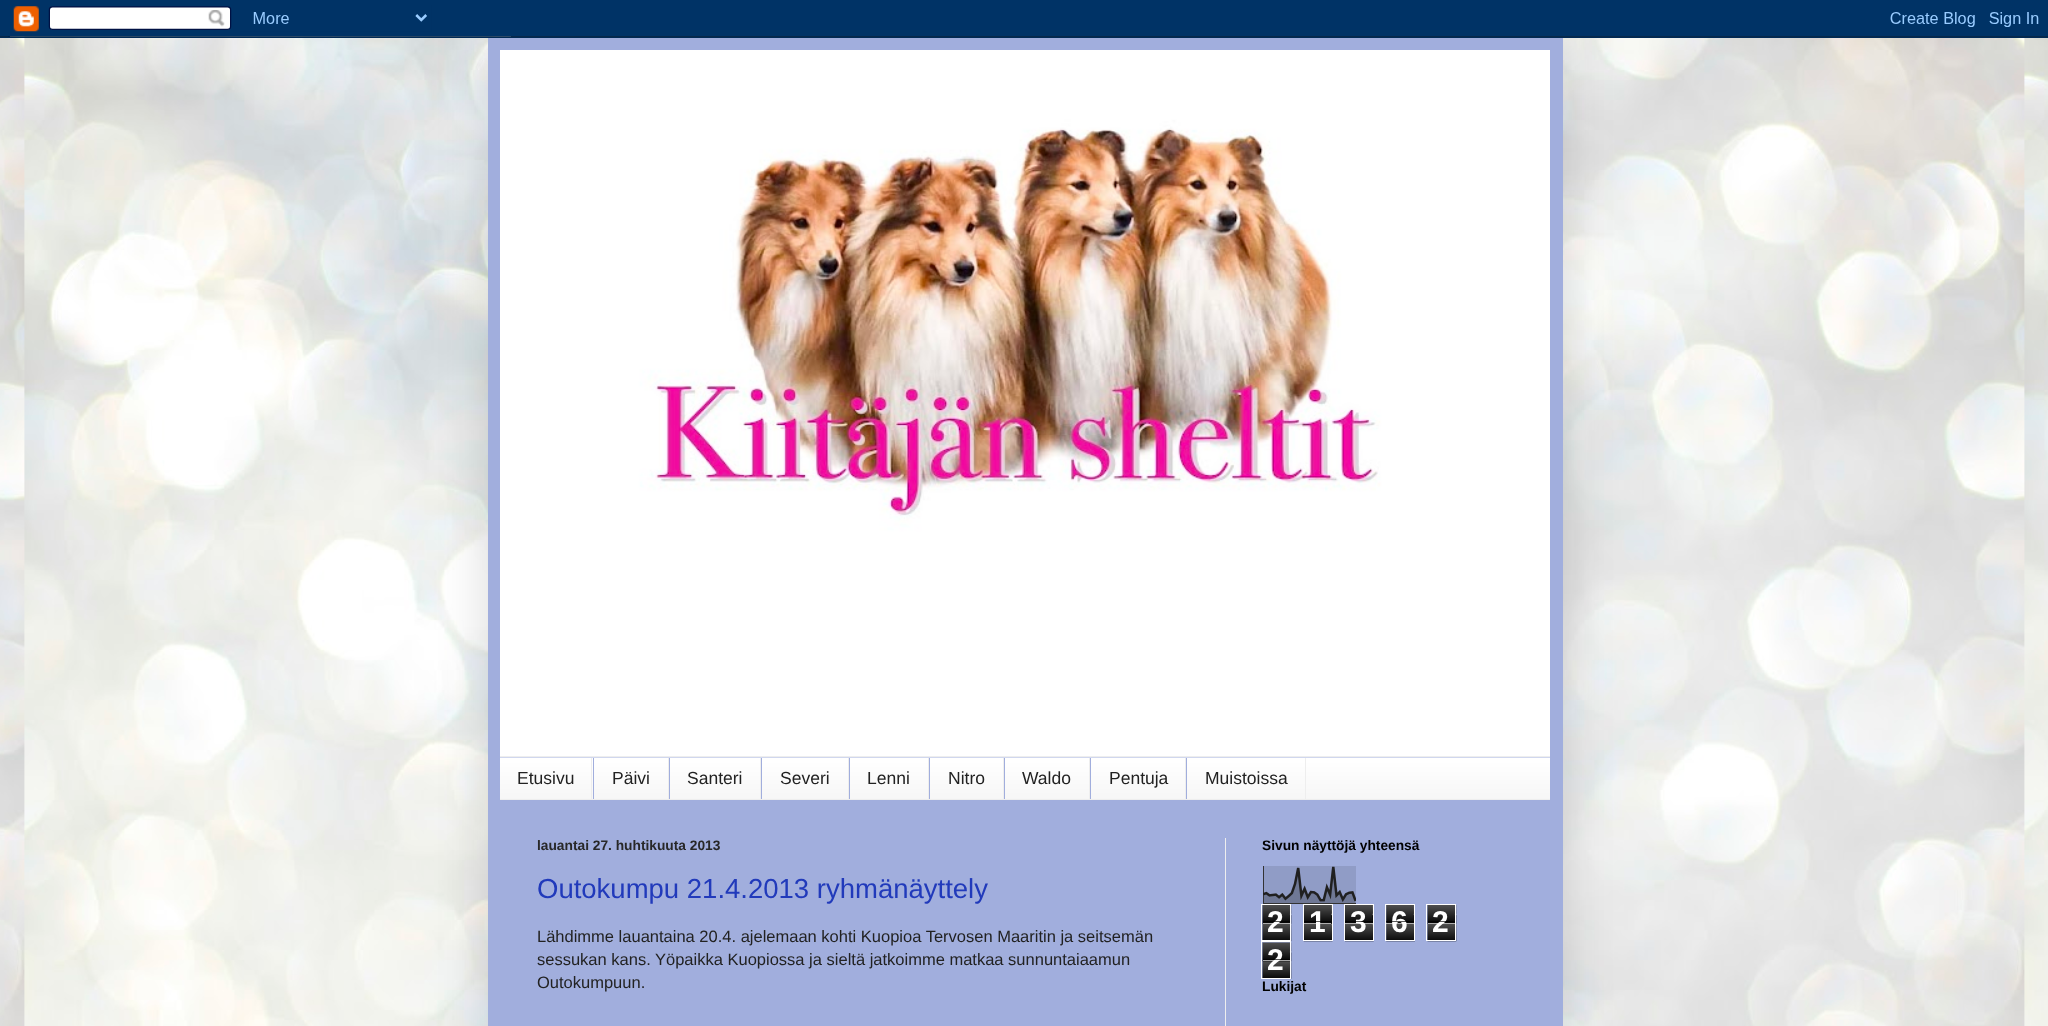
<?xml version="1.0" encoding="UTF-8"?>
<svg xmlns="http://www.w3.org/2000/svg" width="2048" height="1026">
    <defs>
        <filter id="blur1" x="-50%" y="-200%" width="200%" height="500%"><feGaussianBlur stdDeviation="25"/></filter>
    </defs>
    <rect width="100%" height="100%" fill="#FFFFFF"/>
    <image x="0" y="36" width="2048" height="990" href="img_01.png"/>
    <rect x="488" y="38" width="1075" height="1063" fill="#000000" fill-opacity="0.15" filter="url(#blur1)"/>
    <image x="0" y="0" width="2048" height="38" href="img_02.png"/>
    <rect x="488" y="38" width="1075" height="988" fill="#A1AEDD"/>
    <image x="500" y="50" width="1050" height="706" href="img_03.png"/>
    <rect x="500" y="759" width="1050" height="40" fill="#F5F5F5"/>
    <image x="500" y="757" width="1050" height="42" href="img_04.png"/>
    <rect x="500" y="756" width="1050" height="1" fill="#EEEEEE"/>
    <rect x="500" y="799" width="1050" height="1" fill="#EEEEEE"/>
    <rect x="591" y="758" width="1" height="41" fill="#EEEEEE"/>
    <text x="517" y="784" font-family="Liberation Sans" font-size="17.5" fill="#222222">Etusivu</text>
    <rect x="668" y="758" width="1" height="41" fill="#EEEEEE"/>
    <rect x="593" y="758" width="1" height="41" fill="#A1AEDD"/>
    <text x="612" y="784" font-family="Liberation Sans" font-size="17.5" fill="#222222">Päivi</text>
    <rect x="760" y="758" width="1" height="41" fill="#EEEEEE"/>
    <rect x="669" y="758" width="1" height="41" fill="#A1AEDD"/>
    <text x="687" y="784" font-family="Liberation Sans" font-size="17.5" fill="#222222">Santeri</text>
    <rect x="848" y="758" width="1" height="41" fill="#EEEEEE"/>
    <rect x="761" y="758" width="1" height="41" fill="#A1AEDD"/>
    <text x="780" y="784" font-family="Liberation Sans" font-size="17.5" fill="#222222">Severi</text>
    <rect x="928" y="758" width="1" height="41" fill="#EEEEEE"/>
    <rect x="849" y="758" width="1" height="41" fill="#A1AEDD"/>
    <text x="867" y="784" font-family="Liberation Sans" font-size="17.5" fill="#222222">Lenni</text>
    <rect x="1003" y="758" width="1" height="41" fill="#EEEEEE"/>
    <rect x="929" y="758" width="1" height="41" fill="#A1AEDD"/>
    <text x="948" y="784" font-family="Liberation Sans" font-size="17.5" fill="#222222">Nitro</text>
    <rect x="1089" y="758" width="1" height="41" fill="#EEEEEE"/>
    <rect x="1004" y="758" width="1" height="41" fill="#A1AEDD"/>
    <text x="1022" y="784" font-family="Liberation Sans" font-size="17.5" fill="#222222">Waldo</text>
    <rect x="1185" y="758" width="1" height="41" fill="#EEEEEE"/>
    <rect x="1090" y="758" width="1" height="41" fill="#A1AEDD"/>
    <text x="1109" y="784" font-family="Liberation Sans" font-size="17.5" fill="#222222">Pentuja</text>
    <rect x="1305" y="758" width="1" height="41" fill="#EEEEEE"/>
    <rect x="1186" y="758" width="1" height="41" fill="#A1AEDD"/>
    <text x="1205" y="784" font-family="Liberation Sans" font-size="17.5" fill="#222222">Muistoissa</text>
    <rect x="1225" y="838" width="1" height="188" fill="#EEEEEE"/>
    <text x="537" y="850" font-family="Liberation Sans" font-size="13.75" font-weight="700" fill="#282828">lauantai 27. huhtikuuta 2013</text>
    <text x="537" y="898" font-family="Liberation Sans" font-size="27.5" fill="#213ABB">Outokumpu 21.4.2013 ryhmänäyttely</text>
    <text font-family="Liberation Sans" font-size="16.5" fill="#222222">
        <tspan x="537" y="942">Lähdimme lauantaina 20.4. ajelemaan kohti Kuopioa Tervosen Maaritin ja seitsemän</tspan>
        <tspan x="537" y="965">sessukan kans. Yöpaikka Kuopiossa ja sieltä jatkoimme matkaa sunnuntaiaamun</tspan>
        <tspan x="537" y="988">Outokumpuun.</tspan>
    </text>
    <text x="1262" y="850" font-family="Liberation Sans" font-size="13.75" font-weight="700" fill="#000000">Sivun näyttöjä yhteensä</text>
    <image x="1263" y="866" width="93" height="38" href="img_05.png"/>
    <image x="1262" y="905" width="30" height="37" href="img_06.png"/>
    <rect x="1261.5" y="904.5" width="29" height="36" fill="none" stroke="#FFFFFF"/>
    <text x="1267" y="932" font-family="Liberation Sans" font-size="30" font-weight="700" fill="#FFFFFF">2</text>
    <rect x="1263" y="921" width="27" height="1" fill="#000000" fill-opacity="0.65"/>
    <rect x="1263" y="923" width="27" height="1" fill="#FFFFFF" fill-opacity="0.65"/>
    <image x="1303" y="905" width="30" height="37" href="img_07.png"/>
    <rect x="1303.5" y="904.5" width="29" height="36" fill="none" stroke="#FFFFFF"/>
    <text x="1309" y="932" font-family="Liberation Sans" font-size="30" font-weight="700" fill="#FFFFFF">1</text>
    <rect x="1304" y="921" width="27" height="1" fill="#000000" fill-opacity="0.65"/>
    <rect x="1304" y="923" width="27" height="1" fill="#FFFFFF" fill-opacity="0.65"/>
    <image x="1345" y="905" width="29" height="37" href="img_08.png"/>
    <rect x="1344.5" y="904.5" width="29" height="36" fill="none" stroke="#FFFFFF"/>
    <text x="1350" y="932" font-family="Liberation Sans" font-size="30" font-weight="700" fill="#FFFFFF">3</text>
    <rect x="1345" y="921" width="28" height="1" fill="#000000" fill-opacity="0.65"/>
    <rect x="1345" y="923" width="28" height="1" fill="#FFFFFF" fill-opacity="0.65"/>
    <image x="1386" y="905" width="29" height="37" href="img_09.png"/>
    <rect x="1385.5" y="904.5" width="29" height="36" fill="none" stroke="#FFFFFF"/>
    <text x="1391" y="932" font-family="Liberation Sans" font-size="30" font-weight="700" fill="#FFFFFF">6</text>
    <rect x="1386" y="921" width="28" height="1" fill="#000000" fill-opacity="0.65"/>
    <rect x="1386" y="923" width="28" height="1" fill="#FFFFFF" fill-opacity="0.65"/>
    <image x="1427" y="905" width="30" height="37" href="img_06.png"/>
    <rect x="1426.5" y="904.5" width="29" height="36" fill="none" stroke="#FFFFFF"/>
    <text x="1432" y="932" font-family="Liberation Sans" font-size="30" font-weight="700" fill="#FFFFFF">2</text>
    <rect x="1428" y="921" width="27" height="1" fill="#000000" fill-opacity="0.65"/>
    <rect x="1428" y="923" width="27" height="1" fill="#FFFFFF" fill-opacity="0.65"/>
    <image x="1262" y="942" width="30" height="37" href="img_10.png"/>
    <rect x="1261.5" y="941.5" width="29" height="37" fill="none" stroke="#FFFFFF"/>
    <text x="1267" y="970" font-family="Liberation Sans" font-size="30" font-weight="700" fill="#FFFFFF">2</text>
    <rect x="1263" y="959" width="27" height="1" fill="#000000" fill-opacity="0.65"/>
    <rect x="1263" y="960" width="27" height="1" fill="#FFFFFF" fill-opacity="0.65"/>
    <text x="1262" y="991" font-family="Liberation Sans" font-size="13.75" font-weight="700" fill="#000000">Lukijat</text>
</svg>
